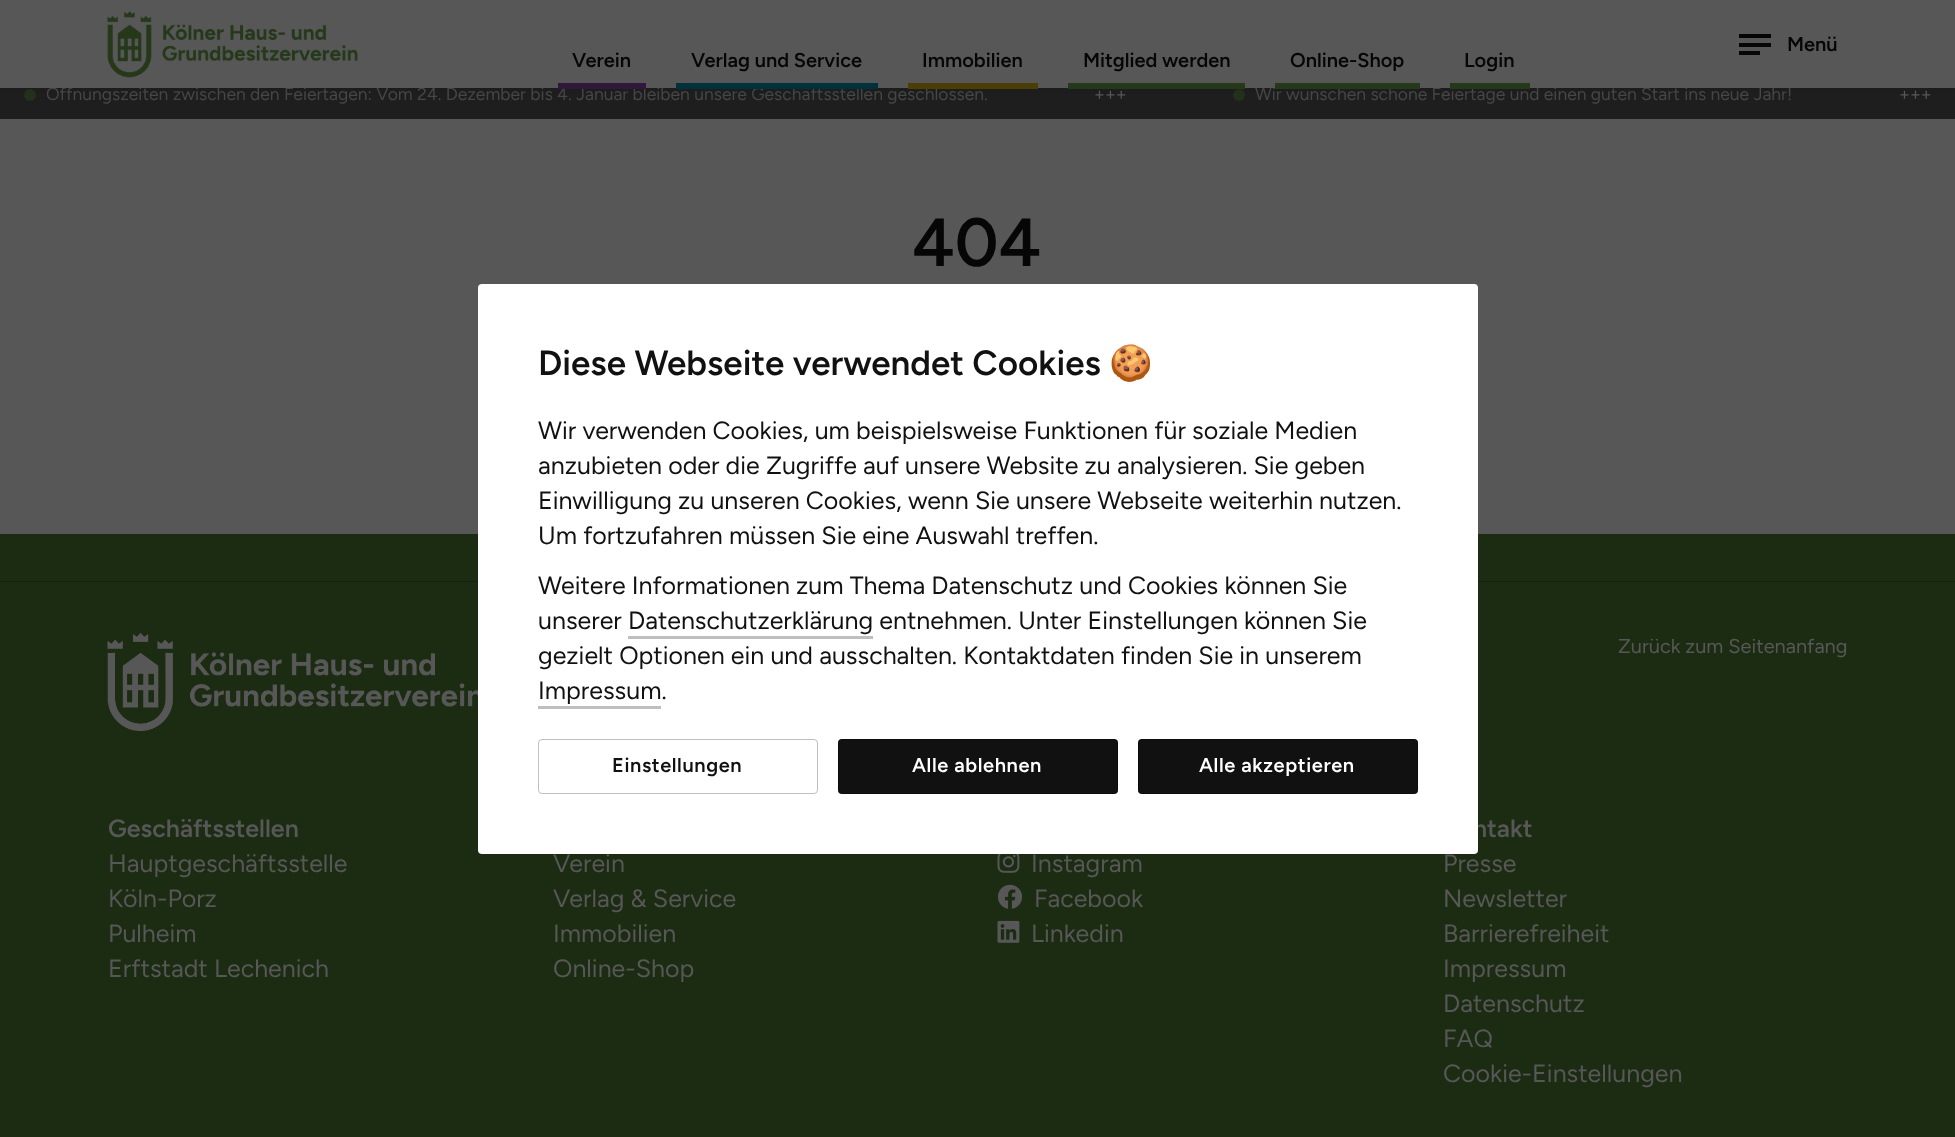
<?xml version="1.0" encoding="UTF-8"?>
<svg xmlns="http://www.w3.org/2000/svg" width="1955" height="1137">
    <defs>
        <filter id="blur1" x="-50%" y="-200%" width="200%" height="500%"><feGaussianBlur stdDeviation="6"/></filter>
    </defs>
    <rect width="100%" height="100%" fill="#575757"/>
    <rect x="0" y="88" width="1955" height="31" fill="#1E1E1E"/>
    <circle cx="30" cy="95" r="6" fill="#23311C"/>
    <circle cx="1239" cy="95" r="6" fill="#23311C"/>
    <rect x="0" y="0" width="1955" height="88" fill="#000000" fill-opacity="0.12" filter="url(#blur1)"/>
    <text x="46" y="100" font-family="Figtree" font-size="17.5" font-weight="300" fill="#464646">Öffnungszeiten zwischen den Feiertagen: Vom 24. Dezember bis 4. Januar bleiben unsere Geschäftsstellen geschlossen.</text>
    <text x="1255" y="100" font-family="Figtree" font-size="17.5" font-weight="300" fill="#464646">Wir wünschen schöne Feiertage und einen guten Start ins neue Jahr!</text>
    <rect x="0" y="0" width="1955" height="88" fill="#575757"/>
    <image x="107" y="11" width="251" height="67" href="img_01.png"/>
    <rect x="1739" y="34" width="32" height="4" fill="#060606"/>
    <rect x="1739" y="43" width="32" height="4" fill="#060606"/>
    <rect x="1739" y="51" width="21" height="4" fill="#060606"/>
    <text x="1787" y="51" font-family="Figtree" font-size="20" font-weight="600" fill="#060606">Menü</text>
    <path d="M 562 40 H 642 C 644 40 646 42 646 44 V 89 H 558 V 44 C 558 42 560 40 562 40 Z" fill="#575757"/>
    <rect x="558" y="83" width="88" height="6" fill="#30183D"/>
    <text x="572" y="67" font-family="Figtree" font-size="20" font-weight="600" fill="#060606">Verein</text>
    <path d="M 680 40 H 874 C 876 40 878 42 878 44 V 89 H 676 V 44 C 676 42 678 40 680 40 Z" fill="#575757"/>
    <rect x="676" y="83" width="202" height="6" fill="#00313C"/>
    <text x="691" y="67" font-family="Figtree" font-size="20" font-weight="600" fill="#060606">Verlag und Service</text>
    <path d="M 912 40 H 1034 C 1036 40 1038 42 1038 44 V 89 H 908 V 44 C 908 42 910 40 912 40 Z" fill="#575757"/>
    <rect x="908" y="83" width="130" height="6" fill="#4A3D05"/>
    <text x="922" y="67" font-family="Figtree" font-size="20" font-weight="600" fill="#060606">Immobilien</text>
    <path d="M 1072 40 H 1241 C 1243 40 1245 42 1245 44 V 89 H 1068 V 44 C 1068 42 1070 40 1072 40 Z" fill="#575757"/>
    <rect x="1068" y="83" width="177" height="6" fill="#25391A"/>
    <text x="1083" y="67" font-family="Figtree" font-size="20" font-weight="600" fill="#060606">Mitglied werden</text>
    <path d="M 1279 40 H 1416 C 1418 40 1420 42 1420 44 V 89 H 1275 V 44 C 1275 42 1277 40 1279 40 Z" fill="#575757"/>
    <rect x="1275" y="83" width="145" height="6" fill="#25391A"/>
    <text x="1290" y="67" font-family="Figtree" font-size="20" font-weight="600" fill="#060606">Online-Shop</text>
    <path d="M 1454 40 H 1526 C 1528 40 1530 42 1530 44 V 89 H 1450 V 44 C 1450 42 1452 40 1454 40 Z" fill="#575757"/>
    <rect x="1450" y="83" width="80" height="6" fill="#25391A"/>
    <text x="1464" y="67" font-family="Figtree" font-size="20" font-weight="600" fill="#060606">Login</text>
    <text x="1094" y="100" font-family="Figtree" font-size="17.5" font-weight="300" fill="#575757">+++</text>
    <text x="1899" y="100" font-family="Figtree" font-size="17.5" font-weight="300" fill="#575757">+++</text>
    <text x="912" y="266" font-family="Figtree" font-size="68" font-weight="600" fill="#060606">404</text>
    <rect x="0" y="534" width="1955" height="47" fill="#1C2C13"/>
    <rect x="0" y="582" width="1955" height="555" fill="#1C2C13"/>
    <rect x="0" y="581" width="1955" height="1" fill="#15210F"/>
    <text x="1473" y="837" font-family="Figtree" font-size="25" font-weight="600" fill="#575757">ntakt</text>
    <rect x="478" y="284" width="1000" height="570" rx="4" fill="#FFFFFF"/>
    <text x="538" y="375" font-family="Figtree" font-size="35" font-weight="600" fill="#111111">Diese Webseite verwendet Cookies</text>
    <text x="1109" y="375" font-family="Noto Color Emoji" font-size="35" font-weight="700" fill="#111111">🍪</text>
    <text font-family="Figtree" font-size="25" font-weight="300" fill="#111111">
        <tspan x="538" y="439">Wir verwenden Cookies, um beispielsweise Funktionen für soziale Medien</tspan>
        <tspan x="538" y="474">anzubieten oder die Zugriffe auf unsere Website zu analysieren. Sie geben</tspan>
        <tspan x="538" y="509">Einwilligung zu unseren Cookies, wenn Sie unsere Webseite weiterhin nutzen.</tspan>
        <tspan x="538" y="544">Um fortzufahren müssen Sie eine Auswahl treffen.</tspan>
    </text>
    <text font-family="Figtree" font-size="25" font-weight="300" fill="#111111">
        <tspan x="538" y="594">Weitere Informationen zum Thema Datenschutz und Cookies können Sie</tspan>
        <tspan x="538" y="629">unserer Datenschutzerklärung entnehmen. Unter Einstellungen können Sie</tspan>
    </text>
    <rect x="628" y="636" width="245" height="3" fill="#BFBFBF"/>
    <text font-family="Figtree" font-size="25" font-weight="300" fill="#111111">
        <tspan x="538" y="664">gezielt Optionen ein und ausschalten. Kontaktdaten finden Sie in unserem</tspan>
        <tspan x="538" y="699">Impressum.</tspan>
    </text>
    <rect x="538" y="706" width="123" height="3" fill="#BFBFBF"/>
    <rect x="538.5" y="739.5" width="279" height="54" rx="3.5" fill="none" stroke="#BFBFBF"/>
    <text x="612" y="772" font-family="Figtree" font-size="20" font-weight="600" letter-spacing="0.6" fill="#111111">Einstellungen</text>
    <rect x="838" y="739" width="280" height="55" rx="4" fill="#111111"/>
    <rect x="838.5" y="739.5" width="279" height="54" rx="3.5" fill="none" stroke="#000000" stroke-opacity="0.25"/>
    <text x="912" y="772" font-family="Figtree" font-size="20" font-weight="600" letter-spacing="0.6" fill="#FFFFFF">Alle ablehnen</text>
    <rect x="1138" y="739" width="280" height="55" rx="4" fill="#111111"/>
    <rect x="1138.5" y="739.5" width="279" height="54" rx="3.5" fill="none" stroke="#000000" stroke-opacity="0.25"/>
    <text x="1199" y="772" font-family="Figtree" font-size="20" font-weight="600" letter-spacing="0.6" fill="#FFFFFF">Alle akzeptieren</text>
    <image x="107" y="632" width="371" height="99" href="img_02.png"/>
    <text x="1618" y="653" font-family="Figtree" font-size="20" font-weight="300" fill="#575757">Zurück zum Seitenanfang</text>
    <text x="108" y="837" font-family="Figtree" font-size="25" font-weight="600" fill="#575757">Geschäftsstellen</text>
    <text font-family="Figtree" font-size="25" font-weight="300" fill="#575757">
        <tspan x="108" y="872">Hauptgeschäftsstelle</tspan>
        <tspan x="108" y="907">Köln-Porz</tspan>
        <tspan x="108" y="942">Pulheim</tspan>
        <tspan x="108" y="977">Erftstadt Lechenich</tspan>
    </text>
    <text font-family="Figtree" font-size="25" font-weight="300" fill="#575757">
        <tspan x="553" y="872">Verein</tspan>
        <tspan x="553" y="907">Verlag &amp; Service</tspan>
        <tspan x="553" y="942">Immobilien</tspan>
        <tspan x="553" y="977">Online-Shop</tspan>
    </text>
    <image x="997" y="854" width="23" height="19" href="img_03.png"/>
    <text x="1031" y="872" font-family="Figtree" font-size="25" font-weight="300" fill="#575757">Instagram</text>
    <image x="997" y="884" width="26" height="25" href="img_04.png"/>
    <text x="1034" y="907" font-family="Figtree" font-size="25" font-weight="300" fill="#575757">Facebook</text>
    <image x="997" y="920" width="23" height="23" href="img_05.png"/>
    <text x="1031" y="942" font-family="Figtree" font-size="25" font-weight="300" fill="#575757">Linkedin</text>
    <text font-family="Figtree" font-size="25" font-weight="300" fill="#575757">
        <tspan x="1443" y="872">Presse</tspan>
        <tspan x="1443" y="907">Newsletter</tspan>
        <tspan x="1443" y="942">Barrierefreiheit</tspan>
        <tspan x="1443" y="977">Impressum</tspan>
        <tspan x="1443" y="1012">Datenschutz</tspan>
        <tspan x="1443" y="1047">FAQ</tspan>
        <tspan x="1443" y="1082">Cookie-Einstellungen</tspan>
    </text>
</svg>
